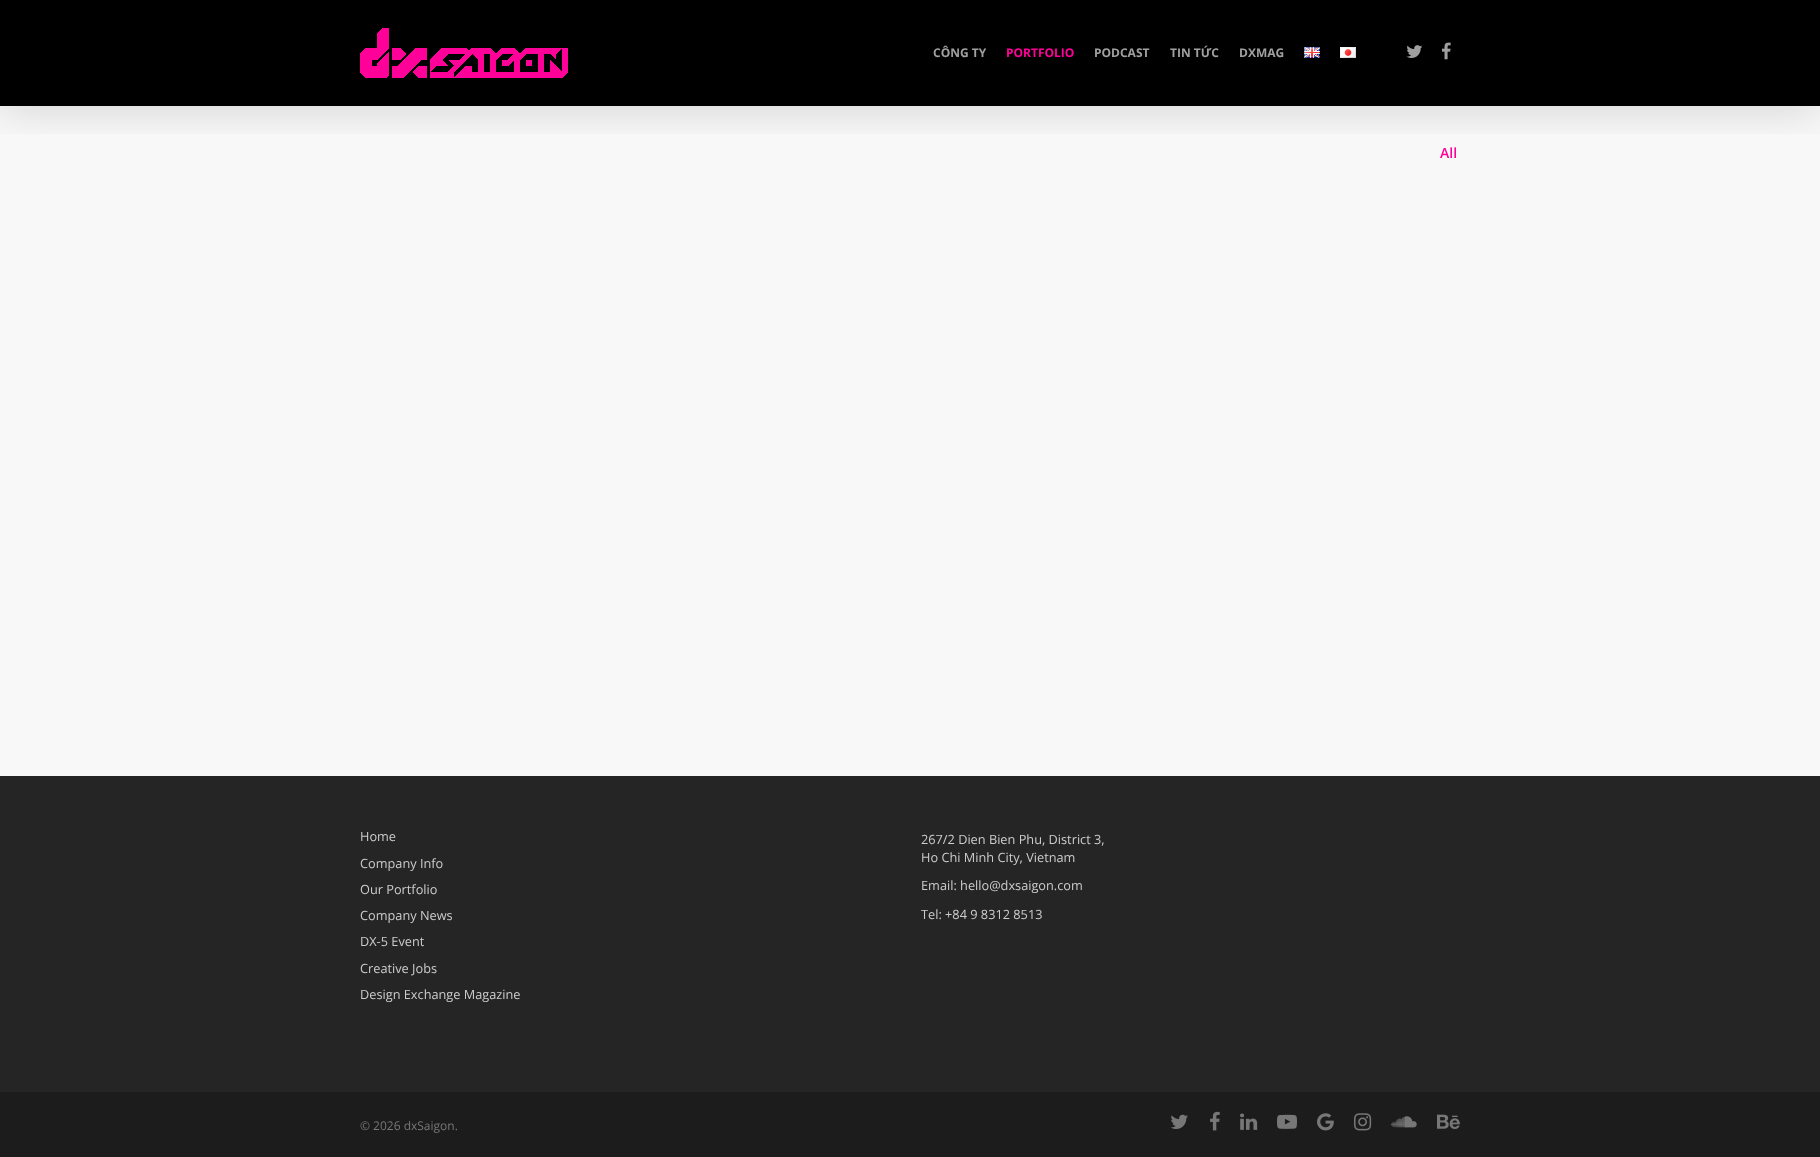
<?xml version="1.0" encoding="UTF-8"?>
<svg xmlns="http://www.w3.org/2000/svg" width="1820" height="1157">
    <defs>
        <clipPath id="clip1"><rect x="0" y="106" width="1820" height="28"/></clipPath>
        <filter id="blur1" x="-50%" y="-200%" width="200%" height="500%"><feGaussianBlur stdDeviation="22.5"/></filter>
    </defs>
    <rect width="100%" height="100%" fill="#000000"/>
    <rect x="0" y="106" width="1820" height="670" fill="#F8F8F8"/>
    <g clip-path="url(#clip1)">
        <rect x="0" y="3" width="1820" height="106" fill="#000000" fill-opacity="0.15" filter="url(#blur1)"/>
    </g>
    <image x="360" y="28" width="208" height="50" href="img_01.png"/>
    <text x="933" y="57" font-family="Open Sans" font-size="12" font-weight="700" fill="#A0A0A0">CÔNG TY</text>
    <text x="1006" y="57" font-family="Open Sans" font-size="12" font-weight="700" fill="#FF0099">PORTFOLIO</text>
    <text x="1094" y="57" font-family="Open Sans" font-size="12" font-weight="700" fill="#A0A0A0">PODCAST</text>
    <text x="1170" y="57" font-family="Open Sans" font-size="12" font-weight="700" fill="#A0A0A0">TIN TỨC</text>
    <text x="1239" y="57" font-family="Open Sans" font-size="12" font-weight="700" fill="#A0A0A0">DXMAG</text>
    <image x="1304" y="47" width="16" height="11" href="img_02.png"/>
    <image x="1340" y="47" width="16" height="11" href="img_03.png"/>
    <image x="1406" y="45" width="17" height="13" href="img_04.png"/>
    <image x="1441" y="42" width="10" height="18" href="img_05.png"/>
    <text x="1440" y="158" font-family="Open Sans" font-size="14" font-weight="600" fill="#FF0099">All</text>
    <rect x="0" y="776" width="1820" height="316" fill="#252525"/>
    <text x="360" y="841" font-family="Open Sans" font-size="12.75" fill="#CCCCCC">Home</text>
    <text x="360" y="868" font-family="Open Sans" font-size="12.75" fill="#CCCCCC">Company Info</text>
    <text x="360" y="894" font-family="Open Sans" font-size="12.75" fill="#CCCCCC">Our Portfolio</text>
    <text x="360" y="920" font-family="Open Sans" font-size="12.75" fill="#CCCCCC">Company News</text>
    <text x="360" y="946" font-family="Open Sans" font-size="12.75" fill="#CCCCCC">DX-5 Event</text>
    <text x="360" y="973" font-family="Open Sans" font-size="12.75" fill="#CCCCCC">Creative Jobs</text>
    <text x="360" y="999" font-family="Open Sans" font-size="12.75" fill="#CCCCCC">Design Exchange Magazine</text>
    <text font-family="Open Sans" font-size="12.75" fill="#CCCCCC">
        <tspan x="921" y="844">267/2 Dien Bien Phu, District 3,</tspan>
        <tspan x="921" y="862">Ho Chi Minh City, Vietnam</tspan>
    </text>
    <text x="921" y="890" font-family="Open Sans" font-size="12.75" fill="#CCCCCC">Email: hello@dxsaigon.com</text>
    <text x="921" y="919" font-family="Open Sans" font-size="12.75" fill="#CCCCCC">Tel: +84 9 8312 8513</text>
    <rect x="0" y="1092" width="1820" height="65" fill="#1C1C1C"/>
    <text x="360" y="1130" font-family="Open Sans" font-size="12" fill="#777777">© 2026 dxSaigon.</text>
    <image x="1170" y="1114" width="18" height="15" href="img_06.png"/>
    <image x="1210" y="1111" width="10" height="20" href="img_07.png"/>
    <image x="1240" y="1113" width="18" height="17" href="img_08.png"/>
    <image x="1277" y="1114" width="20" height="15" href="img_09.png"/>
    <image x="1317" y="1113" width="17" height="18" href="img_10.png"/>
    <image x="1354" y="1113" width="18" height="18" href="img_11.png"/>
    <image x="1391" y="1116" width="26" height="12" href="img_12.png"/>
    <image x="1437" y="1114" width="23" height="15" href="img_13.png"/>
</svg>
